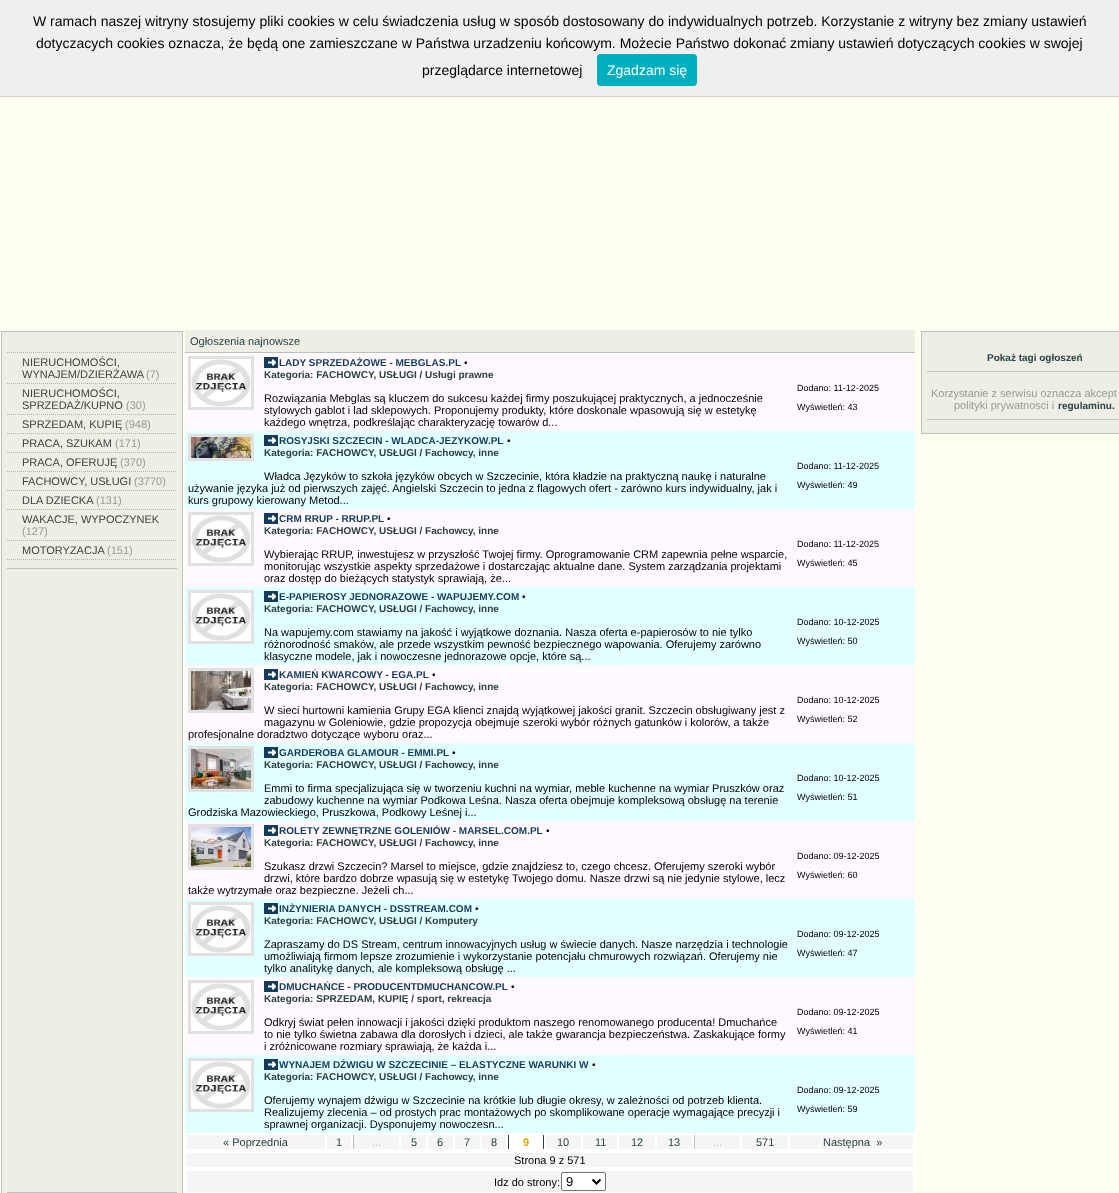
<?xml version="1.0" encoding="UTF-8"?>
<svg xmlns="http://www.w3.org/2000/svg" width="1119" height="1193">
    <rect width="100%" height="100%" fill="#FFFFF1"/>
    <rect x="0" y="0" width="1119" height="96" fill="#EFEFEF"/>
    <rect x="0" y="96" width="1119" height="1" fill="#D3D0D0"/>
    <text x="33" y="26" font-family="Liberation Sans" font-size="14" fill="#000000">W ramach naszej witryny stosujemy pliki cookies w celu świadczenia usług w sposób dostosowany do indywidualnych potrzeb. Korzystanie z witryny bez zmiany ustawień</text>
    <text x="36" y="48" font-family="Liberation Sans" font-size="14" fill="#000000">dotyczacych cookies oznacza, że będą one zamieszczane w Państwa urzadzeniu końcowym. Możecie Państwo dokonać zmiany ustawień dotyczących cookies w swojej</text>
    <text x="422" y="75" font-family="Liberation Sans" font-size="14" fill="#000000">przeglądarce internetowej</text>
    <rect x="597" y="54" width="100" height="32" rx="4" fill="#00AFBF"/>
    <text x="607" y="75" font-family="Liberation Sans" font-size="14" fill="#FFFFFF">Zgadzam się</text>
    <rect x="1.5" y="331.5" width="181" height="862" fill="#EDEFE5" stroke="#BAC2BD"/>
    <rect x="7" y="568" width="170" height="1" fill="#BAC2BD"/>
    <path d="M 7 352.5 H 177" fill="none" stroke="#B3B3B3" stroke-dasharray="1 1"/>
    <path d="M 7 383.5 H 177" fill="none" stroke="#B3B3B3" stroke-dasharray="1 1"/>
    <text font-family="Liberation Sans" font-size="11" fill="#404040">
        <tspan x="22" y="366">NIERUCHOMOŚCI,</tspan>
        <tspan x="22" y="378">WYNAJEM/DZIERŻAWA</tspan>
    </text>
    <text x="146" y="378" font-family="Liberation Sans" font-size="11" fill="#999999">(7)</text>
    <path d="M 7 414.5 H 177" fill="none" stroke="#B3B3B3" stroke-dasharray="1 1"/>
    <text font-family="Liberation Sans" font-size="11" fill="#404040">
        <tspan x="22" y="397">NIERUCHOMOŚCI,</tspan>
        <tspan x="22" y="409">SPRZEDAŻ/KUPNO</tspan>
    </text>
    <text x="126" y="409" font-family="Liberation Sans" font-size="11" fill="#999999">(30)</text>
    <path d="M 7 433.5 H 177" fill="none" stroke="#B3B3B3" stroke-dasharray="1 1"/>
    <text x="22" y="428" font-family="Liberation Sans" font-size="11" fill="#404040">SPRZEDAM, KUPIĘ</text>
    <text x="125" y="428" font-family="Liberation Sans" font-size="11" fill="#999999">(948)</text>
    <path d="M 7 452.5 H 177" fill="none" stroke="#B3B3B3" stroke-dasharray="1 1"/>
    <text x="22" y="447" font-family="Liberation Sans" font-size="11" fill="#404040">PRACA, SZUKAM</text>
    <text x="115" y="447" font-family="Liberation Sans" font-size="11" fill="#999999">(171)</text>
    <path d="M 7 471.5 H 177" fill="none" stroke="#B3B3B3" stroke-dasharray="1 1"/>
    <text x="22" y="466" font-family="Liberation Sans" font-size="11" fill="#404040">PRACA, OFERUJĘ</text>
    <text x="120" y="466" font-family="Liberation Sans" font-size="11" fill="#999999">(370)</text>
    <path d="M 7 490.5 H 177" fill="none" stroke="#B3B3B3" stroke-dasharray="1 1"/>
    <text x="22" y="485" font-family="Liberation Sans" font-size="11" fill="#404040">FACHOWCY, USŁUGI</text>
    <text x="134" y="485" font-family="Liberation Sans" font-size="11" fill="#999999">(3770)</text>
    <path d="M 7 509.5 H 177" fill="none" stroke="#B3B3B3" stroke-dasharray="1 1"/>
    <text x="22" y="504" font-family="Liberation Sans" font-size="11" fill="#404040">DLA DZIECKA</text>
    <text x="96" y="504" font-family="Liberation Sans" font-size="11" fill="#999999">(131)</text>
    <path d="M 7 540.5 H 177" fill="none" stroke="#B3B3B3" stroke-dasharray="1 1"/>
    <text x="22" y="523" font-family="Liberation Sans" font-size="11" fill="#404040">WAKACJE, WYPOCZYNEK</text>
    <text x="22" y="535" font-family="Liberation Sans" font-size="11" fill="#999999">(127)</text>
    <path d="M 7 559.5 H 177" fill="none" stroke="#B3B3B3" stroke-dasharray="1 1"/>
    <text x="22" y="554" font-family="Liberation Sans" font-size="11" fill="#404040">MOTORYZACJA</text>
    <text x="107" y="554" font-family="Liberation Sans" font-size="11" fill="#999999">(151)</text>
    <rect x="7" y="1192" width="170" height="1" fill="#BAC2BD"/>
    <rect x="185" y="330" width="730" height="22" fill="#EDEFE5"/>
    <rect x="185" y="352" width="730" height="1" fill="#BAC2BD"/>
    <text x="190" y="345" font-family="Liberation Sans" font-size="11" fill="#2B4244">Ogłoszenia najnowsze</text>
    <rect x="185" y="353" width="730" height="78" fill="#FFF9FF"/>
    <rect x="189.5" y="357.5" width="63" height="51" fill="none" stroke="#E1E1E1" stroke-width="3"/>
    <image x="191" y="359" width="60" height="48" href="img_01.png"/>
    <image x="264" y="357" width="14" height="11" href="img_02.png"/>
    <text x="279" y="366" font-family="Liberation Sans" font-size="10" font-weight="700" fill="#133B5E">LADY SPRZEDAŻOWE - MEBGLAS.PL</text>
    <text x="464" y="366" font-family="Liberation Sans" font-size="10" fill="#000000">•</text>
    <text x="264" y="378" font-family="Liberation Sans" font-size="10" font-weight="700" fill="#2B4244">Kategoria: FACHOWCY, USŁUGI / Usługi prawne</text>
    <text font-family="Liberation Sans" font-size="11" fill="#000000">
        <tspan x="264" y="402">Rozwiązania Mebglas są kluczem do sukcesu każdej firmy poszukującej praktycznych, a jednocześnie</tspan>
        <tspan x="264" y="414">stylowych gablot i lad sklepowych. Proponujemy produkty, które doskonale wpasowują się w estetykę</tspan>
        <tspan x="264" y="426">każdego wnętrza, podkreślając charakteryzację towarów d...</tspan>
    </text>
    <text x="797" y="391" font-family="Liberation Sans" font-size="9" fill="#000000">Dodano: 11-12-2025</text>
    <text x="797" y="410" font-family="Liberation Sans" font-size="9" fill="#000000">Wyświetleń: 43</text>
    <rect x="185" y="431" width="730" height="78" fill="#E2FFFF"/>
    <rect x="189.5" y="435.5" width="63" height="24" fill="none" stroke="#E1E1E1" stroke-width="3"/>
    <image x="191" y="437" width="60" height="21" href="img_03.png"/>
    <image x="264" y="435" width="14" height="11" href="img_02.png"/>
    <text x="279" y="444" font-family="Liberation Sans" font-size="10" font-weight="700" fill="#133B5E">ROSYJSKI SZCZECIN - WLADCA-JEZYKOW.PL</text>
    <text x="507" y="444" font-family="Liberation Sans" font-size="10" fill="#000000">•</text>
    <text x="264" y="456" font-family="Liberation Sans" font-size="10" font-weight="700" fill="#2B4244">Kategoria: FACHOWCY, USŁUGI / Fachowcy, inne</text>
    <text x="264" y="480" font-family="Liberation Sans" font-size="11" fill="#000000">Władca Języków to szkoła języków obcych w Szczecinie, która kładzie na praktyczną naukę i naturalne</text>
    <text font-family="Liberation Sans" font-size="11" fill="#000000">
        <tspan x="188" y="492">używanie języka już od pierwszych zajęć. Angielski Szczecin to jedna z flagowych ofert - zarówno kurs indywidualny, jak i</tspan>
        <tspan x="188" y="504">kurs grupowy kierowany Metod...</tspan>
    </text>
    <text x="797" y="469" font-family="Liberation Sans" font-size="9" fill="#000000">Dodano: 11-12-2025</text>
    <text x="797" y="488" font-family="Liberation Sans" font-size="9" fill="#000000">Wyświetleń: 49</text>
    <rect x="185" y="509" width="730" height="78" fill="#FFF9FF"/>
    <rect x="189.5" y="513.5" width="63" height="51" fill="none" stroke="#E1E1E1" stroke-width="3"/>
    <image x="191" y="515" width="60" height="48" href="img_01.png"/>
    <image x="264" y="513" width="14" height="11" href="img_02.png"/>
    <text x="279" y="522" font-family="Liberation Sans" font-size="10" font-weight="700" fill="#133B5E">CRM RRUP - RRUP.PL</text>
    <text x="387" y="522" font-family="Liberation Sans" font-size="10" fill="#000000">•</text>
    <text x="264" y="534" font-family="Liberation Sans" font-size="10" font-weight="700" fill="#2B4244">Kategoria: FACHOWCY, USŁUGI / Fachowcy, inne</text>
    <text font-family="Liberation Sans" font-size="11" fill="#000000">
        <tspan x="264" y="558">Wybierając RRUP, inwestujesz w przyszłość Twojej firmy. Oprogramowanie CRM zapewnia pełne wsparcie,</tspan>
        <tspan x="264" y="570">monitorując wszystkie aspekty sprzedażowe i dostarczając aktualne dane. System zarządzania projektami</tspan>
        <tspan x="264" y="582">oraz dostęp do bieżących statystyk sprawiają, że...</tspan>
    </text>
    <text x="797" y="547" font-family="Liberation Sans" font-size="9" fill="#000000">Dodano: 11-12-2025</text>
    <text x="797" y="566" font-family="Liberation Sans" font-size="9" fill="#000000">Wyświetleń: 45</text>
    <rect x="185" y="587" width="730" height="78" fill="#E2FFFF"/>
    <rect x="189.5" y="591.5" width="63" height="51" fill="none" stroke="#E1E1E1" stroke-width="3"/>
    <image x="191" y="593" width="60" height="48" href="img_04.png"/>
    <image x="264" y="591" width="14" height="11" href="img_02.png"/>
    <text x="279" y="600" font-family="Liberation Sans" font-size="10" font-weight="700" fill="#133B5E">E-PAPIEROSY JEDNORAZOWE - WAPUJEMY.COM</text>
    <text x="522" y="600" font-family="Liberation Sans" font-size="10" fill="#000000">•</text>
    <text x="264" y="612" font-family="Liberation Sans" font-size="10" font-weight="700" fill="#2B4244">Kategoria: FACHOWCY, USŁUGI / Fachowcy, inne</text>
    <text font-family="Liberation Sans" font-size="11" fill="#000000">
        <tspan x="264" y="636">Na wapujemy.com stawiamy na jakość i wyjątkowe doznania. Nasza oferta e-papierosów to nie tylko</tspan>
        <tspan x="264" y="648">różnorodność smaków, ale przede wszystkim pewność bezpiecznego wapowania. Oferujemy zarówno</tspan>
        <tspan x="264" y="660">klasyczne modele, jak i nowoczesne jednorazowe opcje, które są...</tspan>
    </text>
    <text x="797" y="625" font-family="Liberation Sans" font-size="9" fill="#000000">Dodano: 10-12-2025</text>
    <text x="797" y="644" font-family="Liberation Sans" font-size="9" fill="#000000">Wyświetleń: 50</text>
    <rect x="185" y="665" width="730" height="78" fill="#FFF9FF"/>
    <rect x="189.5" y="669.5" width="63" height="42" fill="none" stroke="#E1E1E1" stroke-width="3"/>
    <image x="191" y="671" width="60" height="39" href="img_05.png"/>
    <image x="264" y="669" width="14" height="11" href="img_02.png"/>
    <text x="279" y="678" font-family="Liberation Sans" font-size="10" font-weight="700" fill="#133B5E">KAMIEŃ KWARCOWY - EGA.PL</text>
    <text x="432" y="678" font-family="Liberation Sans" font-size="10" fill="#000000">•</text>
    <text x="264" y="690" font-family="Liberation Sans" font-size="10" font-weight="700" fill="#2B4244">Kategoria: FACHOWCY, USŁUGI / Fachowcy, inne</text>
    <text font-family="Liberation Sans" font-size="11" fill="#000000">
        <tspan x="264" y="714">W sieci hurtowni kamienia Grupy EGA klienci znajdą wyjątkowej jakości granit. Szczecin obsługiwany jest z</tspan>
        <tspan x="264" y="726">magazynu w Goleniowie, gdzie propozycja obejmuje szeroki wybór różnych gatunków i kolorów, a także</tspan>
    </text>
    <text x="188" y="738" font-family="Liberation Sans" font-size="11" fill="#000000">profesjonalne doradztwo dotyczące wyboru oraz...</text>
    <text x="797" y="703" font-family="Liberation Sans" font-size="9" fill="#000000">Dodano: 10-12-2025</text>
    <text x="797" y="722" font-family="Liberation Sans" font-size="9" fill="#000000">Wyświetleń: 52</text>
    <rect x="185" y="743" width="730" height="78" fill="#E2FFFF"/>
    <rect x="189.5" y="747.5" width="63" height="43" fill="none" stroke="#E1E1E1" stroke-width="3"/>
    <image x="191" y="749" width="60" height="40" href="img_06.png"/>
    <image x="264" y="747" width="14" height="11" href="img_02.png"/>
    <text x="279" y="756" font-family="Liberation Sans" font-size="10" font-weight="700" fill="#133B5E">GARDEROBA GLAMOUR - EMMI.PL</text>
    <text x="452" y="756" font-family="Liberation Sans" font-size="10" fill="#000000">•</text>
    <text x="264" y="768" font-family="Liberation Sans" font-size="10" font-weight="700" fill="#2B4244">Kategoria: FACHOWCY, USŁUGI / Fachowcy, inne</text>
    <text font-family="Liberation Sans" font-size="11" fill="#000000">
        <tspan x="264" y="792">Emmi to firma specjalizująca się w tworzeniu kuchni na wymiar, meble kuchenne na wymiar Pruszków oraz</tspan>
        <tspan x="264" y="804">zabudowy kuchenne na wymiar Podkowa Leśna. Nasza oferta obejmuje kompleksową obsługę na terenie</tspan>
    </text>
    <text x="188" y="816" font-family="Liberation Sans" font-size="11" fill="#000000">Grodziska Mazowieckiego, Pruszkowa, Podkowy Leśnej i...</text>
    <text x="797" y="781" font-family="Liberation Sans" font-size="9" fill="#000000">Dodano: 10-12-2025</text>
    <text x="797" y="800" font-family="Liberation Sans" font-size="9" fill="#000000">Wyświetleń: 51</text>
    <rect x="185" y="821" width="730" height="78" fill="#FFF9FF"/>
    <rect x="189.5" y="825.5" width="63" height="43" fill="none" stroke="#E1E1E1" stroke-width="3"/>
    <image x="191" y="827" width="60" height="40" href="img_07.png"/>
    <image x="264" y="825" width="14" height="11" href="img_02.png"/>
    <text x="279" y="834" font-family="Liberation Sans" font-size="10" font-weight="700" fill="#133B5E">ROLETY ZEWNĘTRZNE GOLENIÓW - MARSEL.COM.PL</text>
    <text x="546" y="834" font-family="Liberation Sans" font-size="10" fill="#000000">•</text>
    <text x="264" y="846" font-family="Liberation Sans" font-size="10" font-weight="700" fill="#2B4244">Kategoria: FACHOWCY, USŁUGI / Fachowcy, inne</text>
    <text font-family="Liberation Sans" font-size="11" fill="#000000">
        <tspan x="264" y="870">Szukasz drzwi Szczecin? Marsel to miejsce, gdzie znajdziesz to, czego chcesz. Oferujemy szeroki wybór</tspan>
        <tspan x="264" y="882">drzwi, które bardzo dobrze wpasują się w estetykę Twojego domu. Nasze drzwi są nie jedynie stylowe, lecz</tspan>
    </text>
    <text x="188" y="894" font-family="Liberation Sans" font-size="11" fill="#000000">także wytrzymałe oraz bezpieczne. Jeżeli ch...</text>
    <text x="797" y="859" font-family="Liberation Sans" font-size="9" fill="#000000">Dodano: 09-12-2025</text>
    <text x="797" y="878" font-family="Liberation Sans" font-size="9" fill="#000000">Wyświetleń: 60</text>
    <rect x="185" y="899" width="730" height="78" fill="#E2FFFF"/>
    <rect x="189.5" y="903.5" width="63" height="51" fill="none" stroke="#E1E1E1" stroke-width="3"/>
    <image x="191" y="905" width="60" height="48" href="img_01.png"/>
    <image x="264" y="903" width="14" height="11" href="img_02.png"/>
    <text x="279" y="912" font-family="Liberation Sans" font-size="10" font-weight="700" fill="#133B5E">INŻYNIERIA DANYCH - DSSTREAM.COM</text>
    <text x="475" y="912" font-family="Liberation Sans" font-size="10" fill="#000000">•</text>
    <text x="264" y="924" font-family="Liberation Sans" font-size="10" font-weight="700" fill="#2B4244">Kategoria: FACHOWCY, USŁUGI / Komputery</text>
    <text font-family="Liberation Sans" font-size="11" fill="#000000">
        <tspan x="264" y="948">Zapraszamy do DS Stream, centrum innowacyjnych usług w świecie danych. Nasze narzędzia i technologie</tspan>
        <tspan x="264" y="960">umożliwiają firmom lepsze zrozumienie i wykorzystanie potencjału chmurowych rozwiązań. Oferujemy nie</tspan>
        <tspan x="264" y="972">tylko analitykę danych, ale kompleksową obsługę ...</tspan>
    </text>
    <text x="797" y="937" font-family="Liberation Sans" font-size="9" fill="#000000">Dodano: 09-12-2025</text>
    <text x="797" y="956" font-family="Liberation Sans" font-size="9" fill="#000000">Wyświetleń: 47</text>
    <rect x="185" y="977" width="730" height="78" fill="#FFF9FF"/>
    <rect x="189.5" y="981.5" width="63" height="51" fill="none" stroke="#E1E1E1" stroke-width="3"/>
    <image x="191" y="983" width="60" height="48" href="img_01.png"/>
    <image x="264" y="981" width="14" height="11" href="img_02.png"/>
    <text x="279" y="990" font-family="Liberation Sans" font-size="10" font-weight="700" fill="#133B5E">DMUCHAŃCE - PRODUCENTDMUCHANCOW.PL</text>
    <text x="511" y="990" font-family="Liberation Sans" font-size="10" fill="#000000">•</text>
    <text x="264" y="1002" font-family="Liberation Sans" font-size="10" font-weight="700" fill="#2B4244">Kategoria: SPRZEDAM, KUPIĘ / sport, rekreacja</text>
    <text font-family="Liberation Sans" font-size="11" fill="#000000">
        <tspan x="264" y="1026">Odkryj świat pełen innowacji i jakości dzięki produktom naszego renomowanego producenta! Dmuchańce</tspan>
        <tspan x="264" y="1038">to nie tylko świetna zabawa dla dorosłych i dzieci, ale także gwarancja bezpieczeństwa. Zaskakujące formy</tspan>
        <tspan x="264" y="1050">i zróżnicowane rozmiary sprawiają, że każda i...</tspan>
    </text>
    <text x="797" y="1015" font-family="Liberation Sans" font-size="9" fill="#000000">Dodano: 09-12-2025</text>
    <text x="797" y="1034" font-family="Liberation Sans" font-size="9" fill="#000000">Wyświetleń: 41</text>
    <rect x="185" y="1055" width="730" height="78" fill="#E2FFFF"/>
    <rect x="189.5" y="1059.5" width="63" height="51" fill="none" stroke="#E1E1E1" stroke-width="3"/>
    <image x="191" y="1061" width="60" height="48" href="img_01.png"/>
    <image x="264" y="1059" width="14" height="11" href="img_02.png"/>
    <text x="279" y="1068" font-family="Liberation Sans" font-size="10" font-weight="700" fill="#133B5E">WYNAJEM DŹWIGU W SZCZECINIE – ELASTYCZNE WARUNKI W</text>
    <text x="592" y="1068" font-family="Liberation Sans" font-size="10" fill="#000000">•</text>
    <text x="264" y="1080" font-family="Liberation Sans" font-size="10" font-weight="700" fill="#2B4244">Kategoria: FACHOWCY, USŁUGI / Fachowcy, inne</text>
    <text font-family="Liberation Sans" font-size="11" fill="#000000">
        <tspan x="264" y="1104">Oferujemy wynajem dźwigu w Szczecinie na krótkie lub długie okresy, w zależności od potrzeb klienta.</tspan>
        <tspan x="264" y="1116">Realizujemy zlecenia – od prostych prac montażowych po skomplikowane operacje wymagające precyzji i</tspan>
        <tspan x="264" y="1128">sprawnej organizacji. Dysponujemy nowoczesn...</tspan>
    </text>
    <text x="797" y="1093" font-family="Liberation Sans" font-size="9" fill="#000000">Dodano: 09-12-2025</text>
    <text x="797" y="1112" font-family="Liberation Sans" font-size="9" fill="#000000">Wyświetleń: 59</text>
    <rect x="185" y="1133" width="730" height="60" fill="#FFFFFF"/>
    <rect x="187" y="1135" width="138" height="14" fill="#F5F5F5"/>
    <text x="223" y="1146" font-family="Liberation Sans" font-size="11" fill="#2B4244">« Poprzednia</text>
    <rect x="327" y="1135" width="24" height="14" fill="#F5F5F5"/>
    <text x="336" y="1146" font-family="Liberation Sans" font-size="11" fill="#2B4244">1</text>
    <rect x="354" y="1135" width="45" height="14" fill="#F5F5F5"/>
    <rect x="353" y="1135" width="1" height="14" fill="#C0C0C0"/>
    <text x="372" y="1146" font-family="Liberation Sans" font-size="11" fill="#C0C0C0">...</text>
    <rect x="401" y="1135" width="25" height="14" fill="#F5F5F5"/>
    <text x="411" y="1146" font-family="Liberation Sans" font-size="11" fill="#2B4244">5</text>
    <rect x="428" y="1135" width="25" height="14" fill="#F5F5F5"/>
    <text x="437" y="1146" font-family="Liberation Sans" font-size="11" fill="#2B4244">6</text>
    <rect x="455" y="1135" width="25" height="14" fill="#F5F5F5"/>
    <text x="464" y="1146" font-family="Liberation Sans" font-size="11" fill="#2B4244">7</text>
    <rect x="482" y="1135" width="24" height="14" fill="#F5F5F5"/>
    <text x="491" y="1146" font-family="Liberation Sans" font-size="11" fill="#2B4244">8</text>
    <rect x="543" y="1135" width="1" height="14" fill="#2B4244"/>
    <rect x="508" y="1135" width="1" height="14" fill="#2B4244"/>
    <text x="523" y="1146" font-family="Liberation Sans" font-size="11" font-weight="700" fill="#D7A700">9</text>
    <rect x="546" y="1135" width="35" height="14" fill="#F5F5F5"/>
    <text x="557" y="1146" font-family="Liberation Sans" font-size="11" fill="#2B4244">10</text>
    <rect x="583" y="1135" width="34" height="14" fill="#F5F5F5"/>
    <text x="595" y="1146" font-family="Liberation Sans" font-size="11" fill="#2B4244">11</text>
    <rect x="619" y="1135" width="36" height="14" fill="#F5F5F5"/>
    <text x="631" y="1146" font-family="Liberation Sans" font-size="11" fill="#2B4244">12</text>
    <rect x="657" y="1135" width="35" height="14" fill="#F5F5F5"/>
    <text x="668" y="1146" font-family="Liberation Sans" font-size="11" fill="#2B4244">13</text>
    <rect x="695" y="1135" width="45" height="14" fill="#F5F5F5"/>
    <rect x="694" y="1135" width="1" height="14" fill="#C0C0C0"/>
    <text x="713" y="1146" font-family="Liberation Sans" font-size="11" fill="#C0C0C0">...</text>
    <rect x="742" y="1135" width="46" height="14" fill="#F5F5F5"/>
    <text x="756" y="1146" font-family="Liberation Sans" font-size="11" fill="#2B4244">571</text>
    <rect x="790" y="1135" width="123" height="14" fill="#F5F5F5"/>
    <text x="823" y="1146" font-family="Liberation Sans" font-size="11" fill="#2B4244" xml:space="preserve">Następna  »</text>
    <rect x="187" y="1153" width="726" height="14" fill="#F5F5F5"/>
    <text x="514" y="1164" font-family="Liberation Sans" font-size="11" fill="#000000">Strona 9 z 571</text>
    <rect x="187" y="1171" width="726" height="21" fill="#F5F5F5"/>
    <text x="494" y="1186" font-family="Liberation Sans" font-size="11" fill="#000000">Idz do strony:</text>
    <rect x="561.5" y="1172.5" width="44" height="18" rx="1.5" fill="#FFFFFF" stroke="#767676"/>
    <path d="M 592.5 1179.5 L 596.5 1183.5 L 600.5 1179.5" fill="none" stroke="#000000" stroke-width="2"/>
    <text x="566" y="1186" font-family="Liberation Sans" font-size="13" fill="#000000">9</text>
    <rect x="921.5" y="331.5" width="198" height="102" fill="#EDEFE5" stroke="#BAC2BD"/>
    <rect x="927" y="371" width="192" height="1" fill="#BAC2BD"/>
    <text x="987" y="361" font-family="Liberation Sans" font-size="10" font-weight="700" fill="#2B4244">Pokaż tagi ogłoszeń</text>
    <rect x="927" y="419" width="192" height="1" fill="#BAC2BD"/>
    <text x="931" y="397" font-family="Liberation Sans" font-size="11" fill="#999999">Korzystanie z serwisu oznacza akcept</text>
    <text x="954" y="409" font-family="Liberation Sans" font-size="11" fill="#999999">polityki prywatnosci i</text>
    <text x="1058" y="409" font-family="Liberation Sans" font-size="10" font-weight="700" fill="#2B4244">regulaminu.</text>
</svg>
